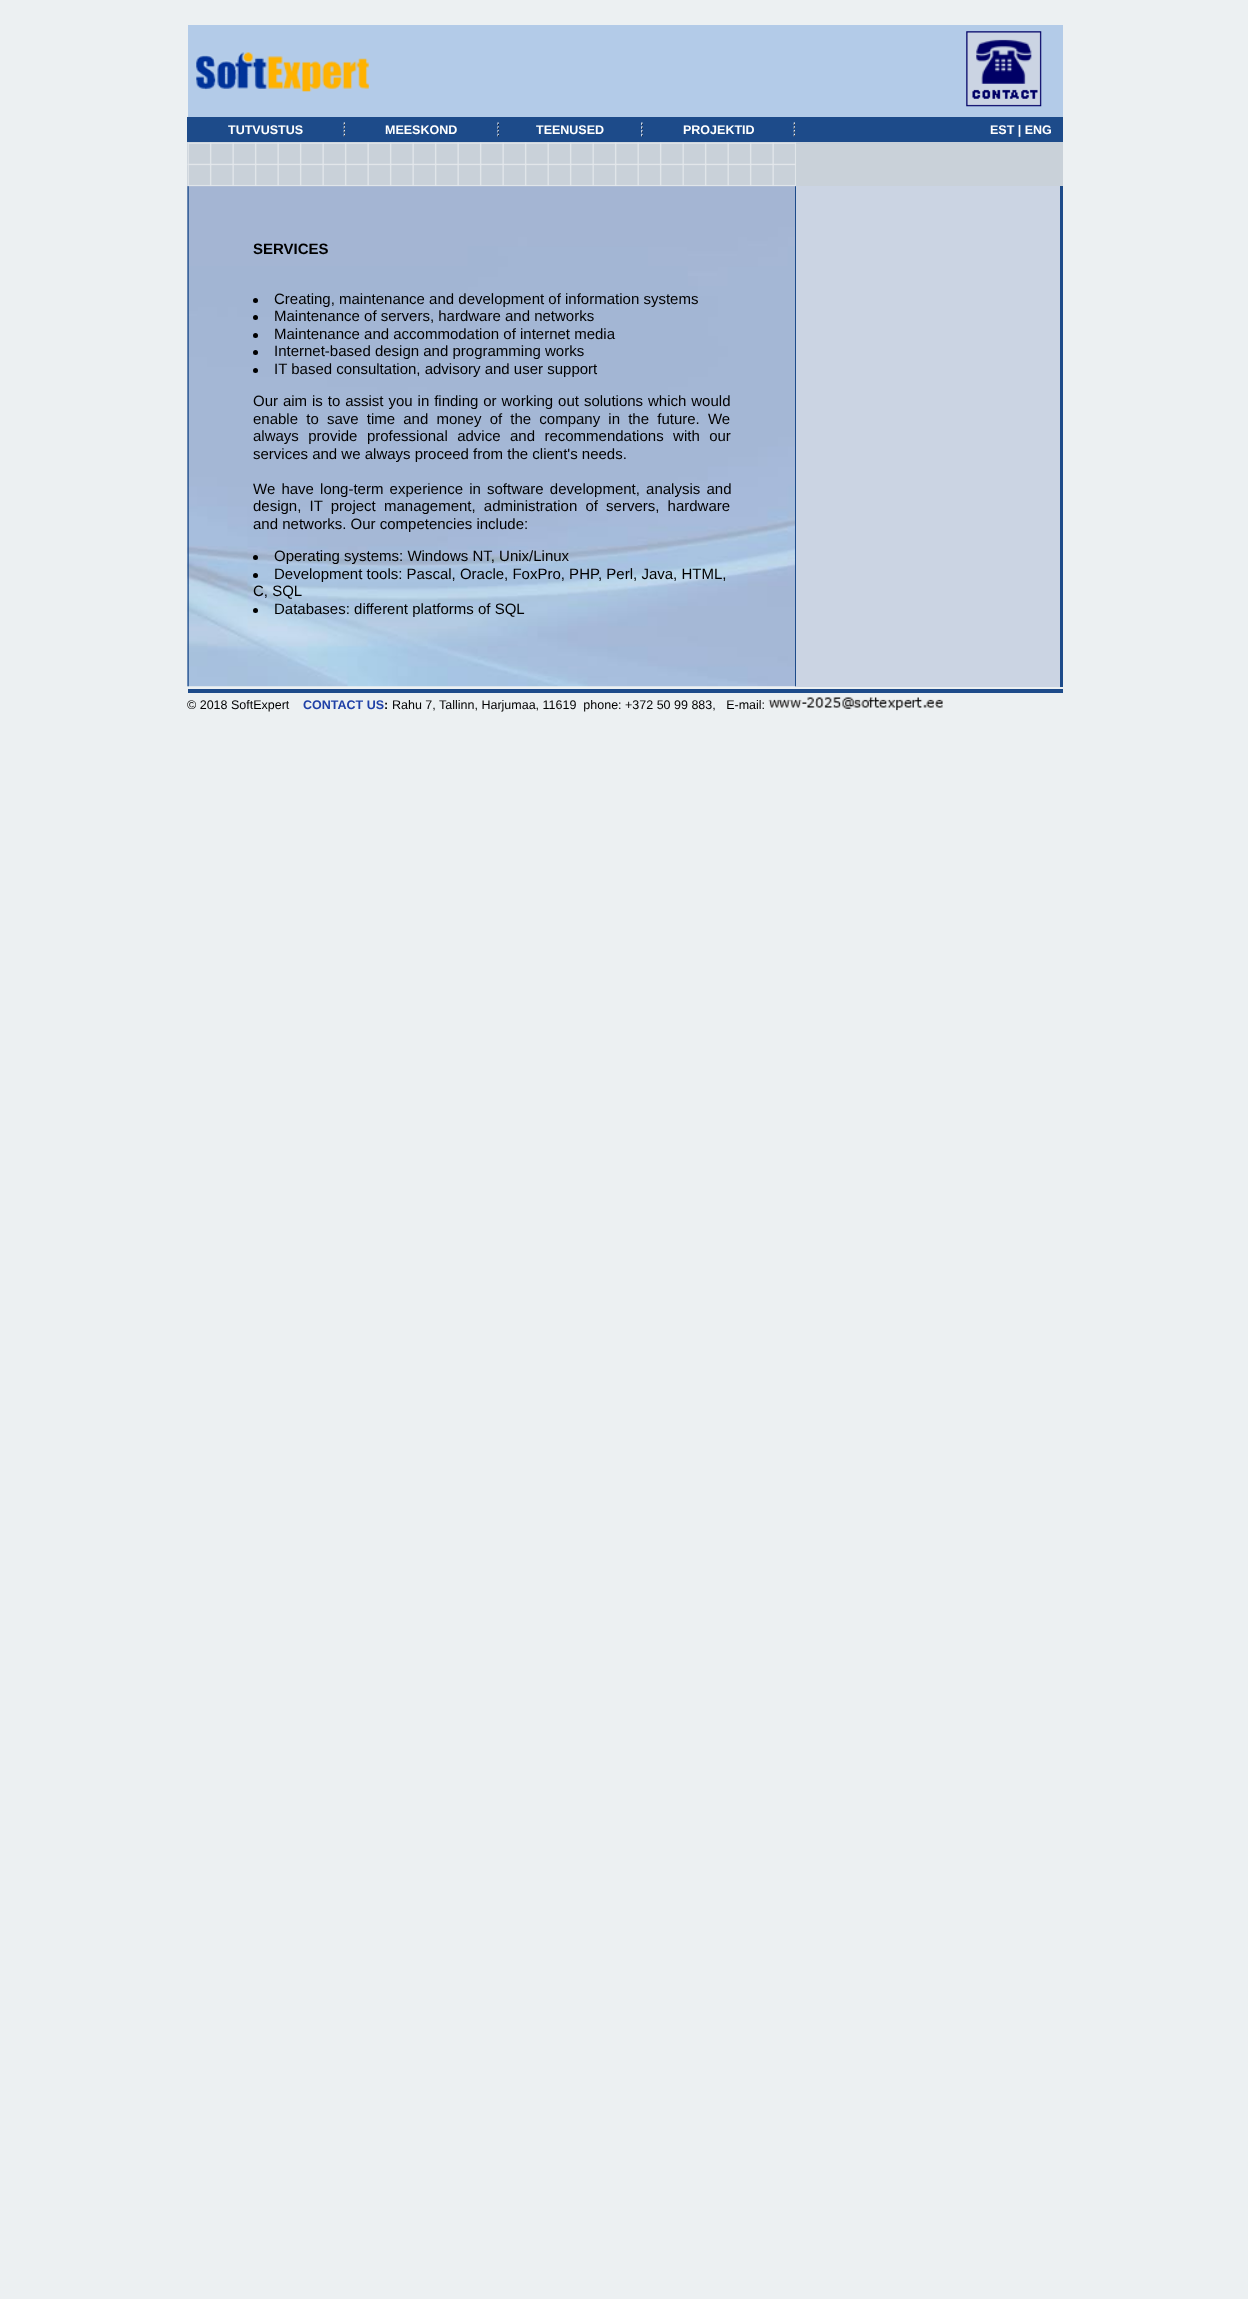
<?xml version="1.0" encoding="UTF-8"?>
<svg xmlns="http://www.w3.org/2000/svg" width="1248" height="2299">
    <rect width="100%" height="100%" fill="#ECF0F2"/>
    <rect x="188" y="25" width="875" height="92" fill="#B3CBE8"/>
    <image x="196" y="52" width="173" height="40" href="img_01.png"/>
    <image x="966" y="31" width="76" height="76" href="img_02.png"/>
    <rect x="187" y="117" width="876" height="25" fill="#1D4B8A"/>
    <text x="228" y="134" font-family="Liberation Sans" font-size="12.5" font-weight="700" fill="#FFFFFF">TUTVUSTUS</text>
    <image x="343" y="122" width="2" height="15" href="img_03.png"/>
    <text x="385" y="134" font-family="Liberation Sans" font-size="12.5" font-weight="700" fill="#FFFFFF">MEESKOND</text>
    <image x="497" y="122" width="2" height="15" href="img_04.png"/>
    <text x="536" y="134" font-family="Liberation Sans" font-size="12.5" font-weight="700" fill="#FFFFFF">TEENUSED</text>
    <image x="641" y="122" width="2" height="15" href="img_05.png"/>
    <text x="683" y="134" font-family="Liberation Sans" font-size="12.5" font-weight="700" fill="#FFFFFF">PROJEKTID</text>
    <image x="793" y="122" width="2" height="15" href="img_03.png"/>
    <text x="990" y="134" font-family="Liberation Sans" font-size="12.5" font-weight="700" fill="#FFFFFF">EST | ENG</text>
    <rect x="187" y="142" width="876" height="45" fill="#C9D1D9"/>
    <image x="187" y="142" width="610" height="45" href="img_06.png"/>
    <rect x="796" y="143" width="1" height="43" fill="#C9D1D9" fill-opacity="0.94"/>
    <image x="187" y="186" width="609" height="501" href="img_07.png"/>
    <image x="187" y="186" width="2" height="501" href="img_08.png"/>
    <text x="253" y="254" font-family="Liberation Sans" font-size="15" font-weight="700" fill="#000000">SERVICES</text>
    <circle cx="255.5" cy="300.5" r="2.5" fill="#000000"/>
    <text x="274" y="304" font-family="Liberation Sans" font-size="15" fill="#000000">Creating, maintenance and development of information systems</text>
    <circle cx="255.5" cy="317.5" r="2.5" fill="#000000"/>
    <text x="274" y="321" font-family="Liberation Sans" font-size="15" fill="#000000">Maintenance of servers, hardware and networks</text>
    <circle cx="255.5" cy="335.5" r="2.5" fill="#000000"/>
    <text x="274" y="339" font-family="Liberation Sans" font-size="15" fill="#000000">Maintenance and accommodation of internet media</text>
    <circle cx="255.5" cy="352.5" r="2.5" fill="#000000"/>
    <text x="274" y="356" font-family="Liberation Sans" font-size="15" fill="#000000">Internet-based design and programming works</text>
    <circle cx="255.5" cy="370.5" r="2.5" fill="#000000"/>
    <text x="274" y="374" font-family="Liberation Sans" font-size="15" fill="#000000">IT based consultation, advisory and user support</text>
    <text font-family="Liberation Sans" font-size="15" fill="#000000">
        <tspan x="253" y="406" word-spacing="0.75">Our aim is to assist you in finding or working out solutions which would</tspan>
        <tspan x="253" y="424" word-spacing="4">enable to save time and money of the company in the future. We</tspan>
        <tspan x="253" y="441" word-spacing="5.25">always provide professional advice and recommendations with our</tspan>
        <tspan x="253" y="459">services and we always proceed from the client's needs.</tspan>
    </text>
    <text font-family="Liberation Sans" font-size="15" fill="#000000">
        <tspan x="253" y="494" word-spacing="2">We have long-term experience in software development, analysis and</tspan>
        <tspan x="253" y="511" word-spacing="4">design, IT project management, administration of servers, hardware</tspan>
        <tspan x="253" y="529">and networks. Our competencies include:</tspan>
    </text>
    <circle cx="255.5" cy="557.5" r="2.5" fill="#000000"/>
    <text x="274" y="561" font-family="Liberation Sans" font-size="15" fill="#000000">Operating systems: Windows NT, Unix/Linux</text>
    <circle cx="255.5" cy="575.5" r="2.5" fill="#000000"/>
    <text x="274" y="579" font-family="Liberation Sans" font-size="15" fill="#000000">Development tools: Pascal, Oracle, FoxPro, PHP, Perl, Java, HTML,</text>
    <text x="253" y="596" font-family="Liberation Sans" font-size="15" fill="#000000">C, SQL</text>
    <circle cx="255.5" cy="610.5" r="2.5" fill="#000000"/>
    <text x="274" y="614" font-family="Liberation Sans" font-size="15" fill="#000000">Databases: different platforms of SQL</text>
    <image x="795" y="186" width="1" height="501" href="img_09.png"/>
    <rect x="796" y="186" width="264" height="501" fill="#CBD4E3"/>
    <rect x="1060" y="186" width="3" height="501" fill="#1D4B8A"/>
    <rect x="188" y="689" width="875" height="4" fill="#1D4B8A"/>
    <text x="187" y="709" font-family="Liberation Sans" font-size="12.5" fill="#000000">© 2018 SoftExpert</text>
    <text x="303" y="709" font-family="Liberation Sans" font-size="12.5" font-weight="700" fill="#1F40A7">CONTACT US</text>
    <text x="384" y="709" font-family="Liberation Sans" font-size="12.5" font-weight="700" fill="#000000">:</text>
    <text x="392" y="709" font-family="Liberation Sans" font-size="12.5" fill="#000000" xml:space="preserve">Rahu 7, Tallinn, Harjumaa, 11619  phone: +372 50 99 883,   E-mail:</text>
    <image x="768" y="697" width="175" height="14" href="img_10.png"/>
</svg>
